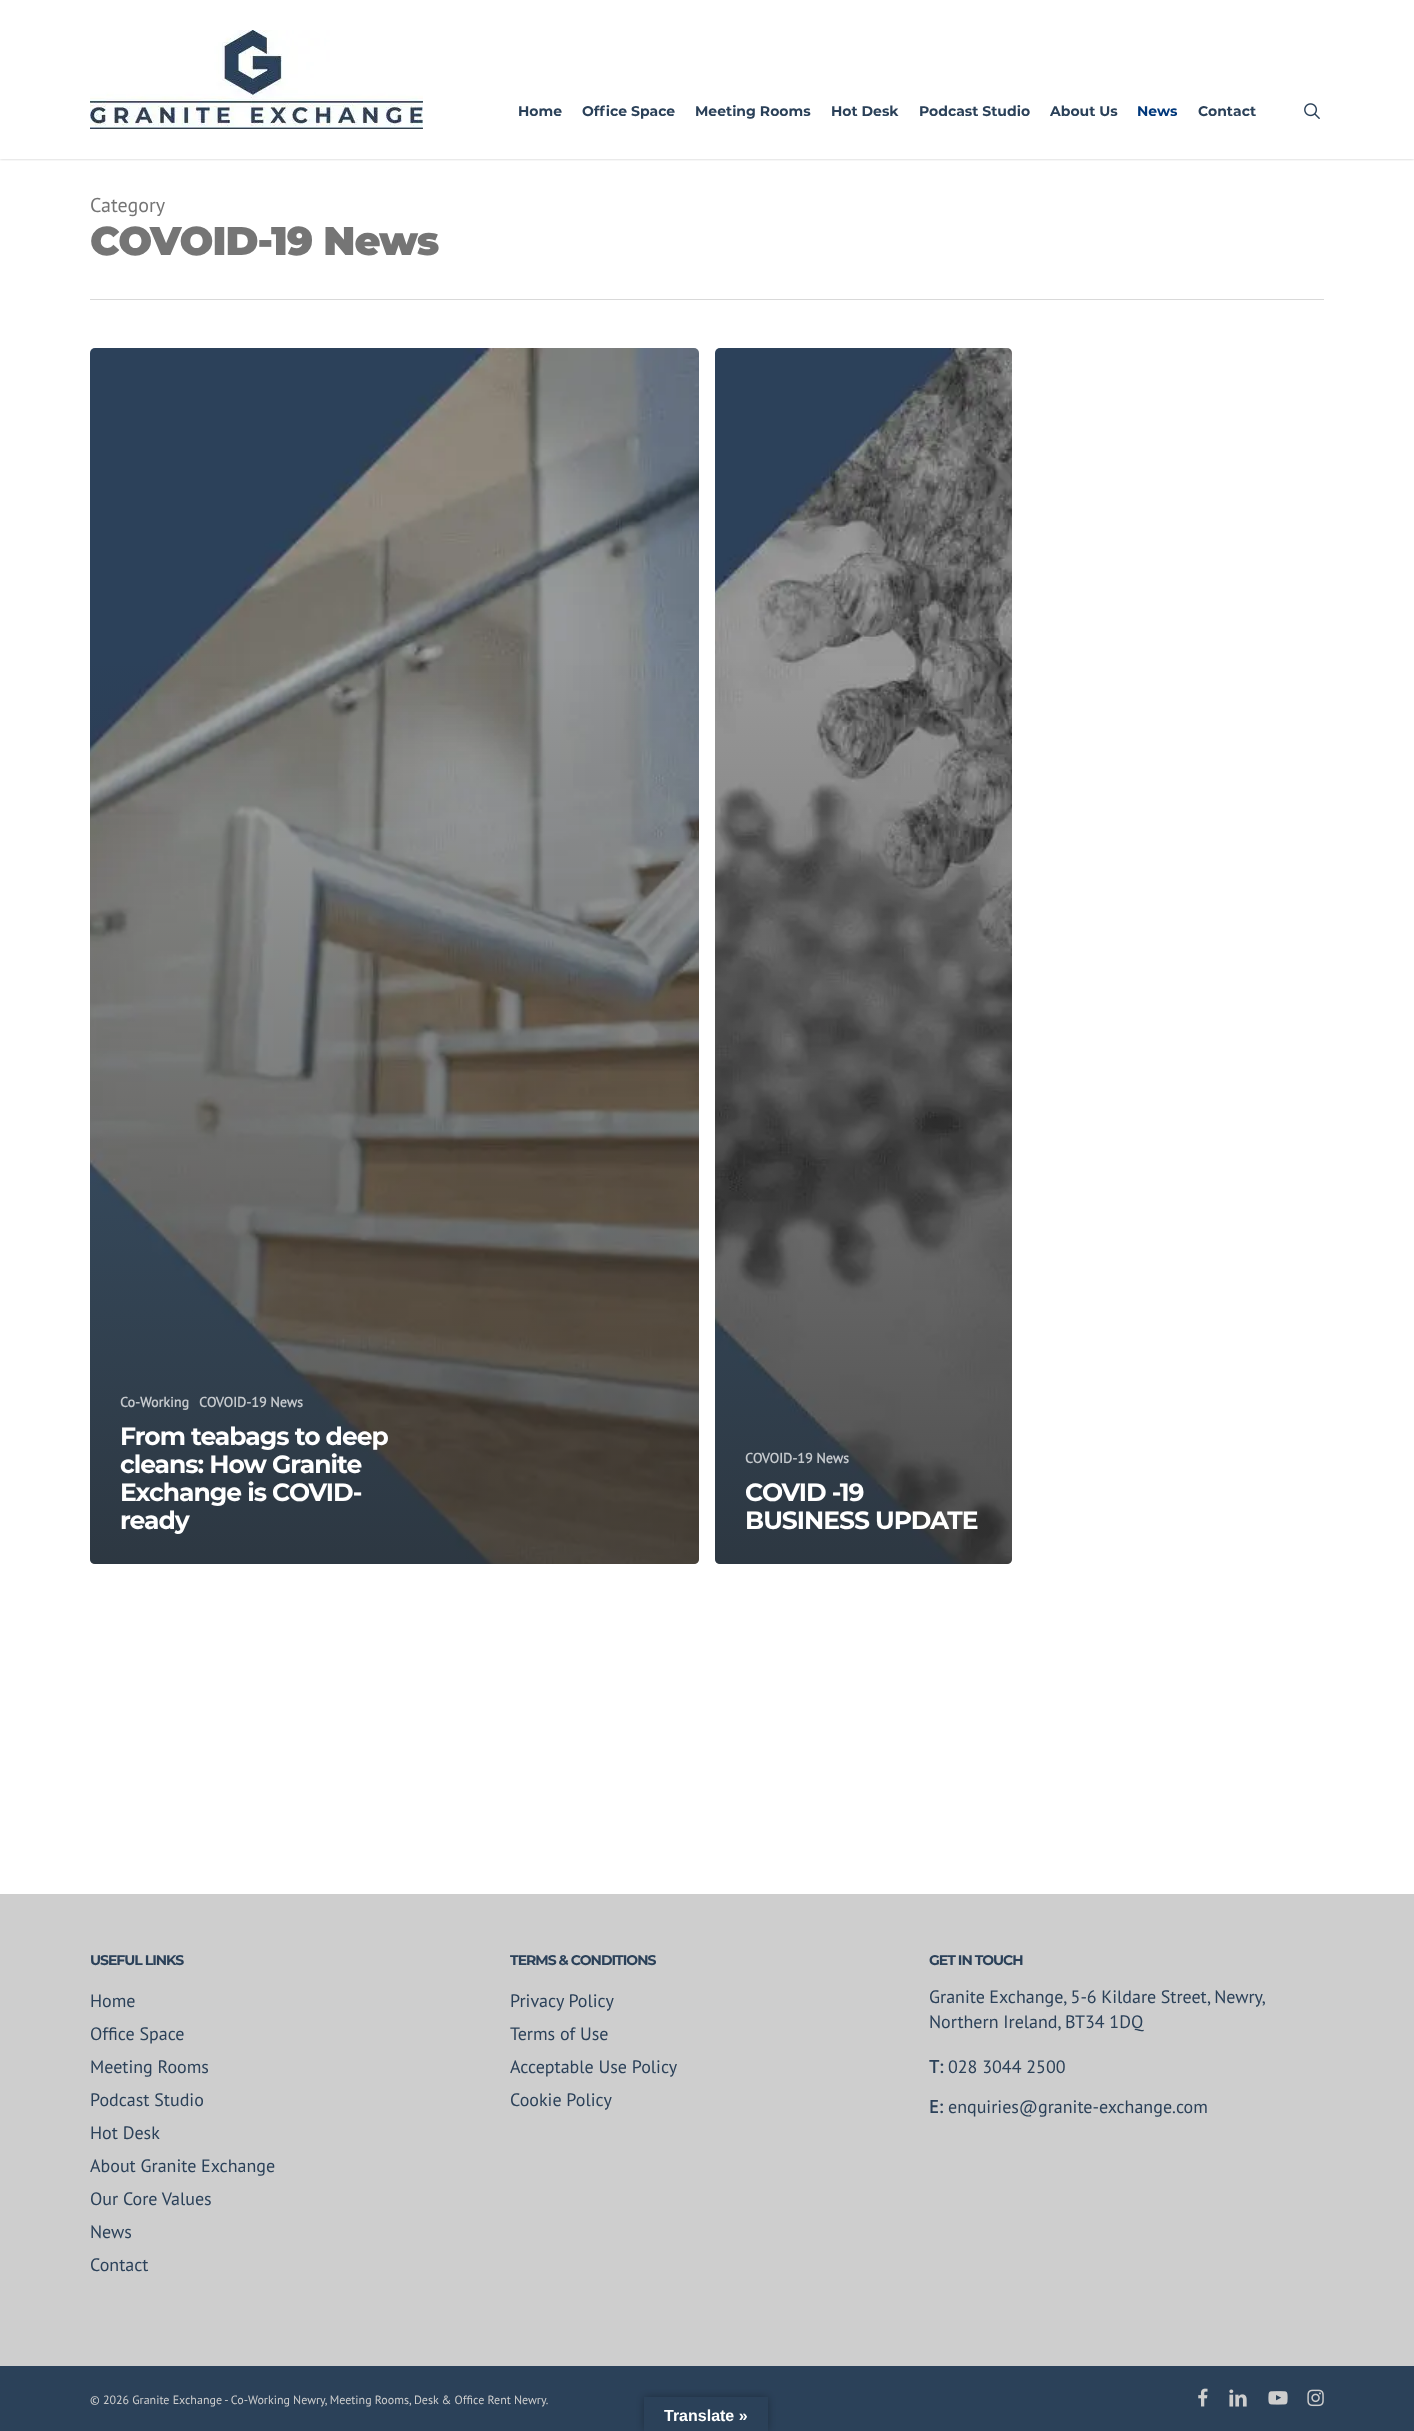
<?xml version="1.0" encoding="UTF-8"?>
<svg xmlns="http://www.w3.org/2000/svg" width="1414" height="2431">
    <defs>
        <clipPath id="clip1"><rect x="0" y="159" width="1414" height="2"/></clipPath>
        <filter id="blur1" x="-50%" y="-200%" width="200%" height="500%"><feGaussianBlur stdDeviation="1.5"/></filter>
        <linearGradient id="g1" gradientUnits="userSpaceOnUse" x1="396" y1="654" x2="396" y2="1570"><stop offset="0" stop-color="#232323" stop-opacity="0"/><stop offset="1" stop-color="#232323" stop-opacity="0.65"/></linearGradient>
        <linearGradient id="g2" gradientUnits="userSpaceOnUse" x1="864" y1="654" x2="864" y2="1570"><stop offset="0" stop-color="#232323" stop-opacity="0"/><stop offset="1" stop-color="#232323" stop-opacity="0.65"/></linearGradient>
        <clipPath id="clip2"><path d="M 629 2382 H 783 V 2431 H 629 Z M 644 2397 H 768 V 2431 H 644 Z" clip-rule="evenodd"/></clipPath>
        <filter id="blur2" x="-50%" y="-200%" width="200%" height="500%"><feGaussianBlur stdDeviation="4.5"/></filter>
    </defs>
    <rect width="100%" height="100%" fill="#FFFFFF"/>
    <g clip-path="url(#clip1)">
        <rect x="0" y="0" width="1414" height="159" fill="#000000" fill-opacity="0.22" filter="url(#blur1)"/>
    </g>
    <image x="90" y="30" width="333" height="99" href="img_01.png"/>
    <text x="518" y="116" font-family="Montserrat" font-size="14" font-weight="700" fill="#2B4159">Home</text>
    <text x="582" y="116" font-family="Montserrat" font-size="14" font-weight="700" fill="#2B4159">Office Space</text>
    <text x="695" y="116" font-family="Montserrat" font-size="14" font-weight="700" fill="#2B4159">Meeting Rooms</text>
    <text x="831" y="116" font-family="Montserrat" font-size="14" font-weight="700" fill="#2B4159">Hot Desk</text>
    <text x="919" y="116" font-family="Montserrat" font-size="14" font-weight="700" fill="#2B4159">Podcast Studio</text>
    <text x="1050" y="116" font-family="Montserrat" font-size="14" font-weight="700" fill="#2B4159">About Us</text>
    <text x="1137" y="116" font-family="Montserrat" font-size="14" font-weight="700" fill="#00387B">News</text>
    <text x="1198" y="116" font-family="Montserrat" font-size="14" font-weight="700" fill="#2B4159">Contact</text>
    <image x="1304" y="103" width="16" height="16" href="img_02.png"/>
    <rect x="90" y="299" width="1234" height="1" fill="#D9D9D9"/>
    <text x="90" y="212" font-family="PT Sans" font-size="20" fill="#757575">Category</text>
    <text x="90" y="255" font-family="Montserrat" font-size="40" font-weight="900" letter-spacing="-1" fill="#757575">COVOID-19 News</text>
    <image x="90" y="348" width="609" height="1216" href="img_03.png"/>
    <path d="M 90 654 H 699 V 1559 C 699 1562 697 1564 694 1564 H 95 C 92 1564 90 1562 90 1559 Z" fill="url(#g1)"/>
    <text x="120" y="1407" font-family="PT Sans" font-size="14" font-weight="700" fill="#C5C9CD">Co-Working</text>
    <text x="199" y="1407" font-family="PT Sans" font-size="14" font-weight="700" fill="#C5C9CD">COVOID-19 News</text>
    <text font-family="Montserrat" font-size="25" font-weight="700" letter-spacing="-1" fill="#FFFFFF">
        <tspan x="120" y="1445">From teabags to deep</tspan>
        <tspan x="120" y="1473">cleans: How Granite</tspan>
        <tspan x="120" y="1501">Exchange is COVID-</tspan>
        <tspan x="120" y="1529">ready</tspan>
    </text>
    <image x="715" y="348" width="297" height="1216" href="img_04.png"/>
    <path d="M 715 654 H 1012 V 1559 C 1012 1562 1010 1564 1007 1564 H 720 C 717 1564 715 1562 715 1559 Z" fill="url(#g2)"/>
    <text x="745" y="1463" font-family="PT Sans" font-size="14" font-weight="700" fill="#C5C9CD">COVOID-19 News</text>
    <text font-family="Montserrat" font-size="25" font-weight="700" letter-spacing="-1" fill="#FFFFFF">
        <tspan x="745" y="1501">COVID -19</tspan>
        <tspan x="745" y="1529">BUSINESS UPDATE</tspan>
    </text>
    <rect x="0" y="1894" width="1414" height="472" fill="#CECECE"/>
    <text x="90" y="1965" font-family="Montserrat" font-size="14" font-weight="700" letter-spacing="-1" fill="#2B4159">USEFUL LINKS</text>
    <text font-family="PT Sans" font-size="18" fill="#2B4159">
        <tspan x="90" y="2007">Home</tspan>
        <tspan x="90" y="2040">Office Space</tspan>
        <tspan x="90" y="2073">Meeting Rooms</tspan>
        <tspan x="90" y="2106">Podcast Studio</tspan>
        <tspan x="90" y="2139">Hot Desk</tspan>
        <tspan x="90" y="2172">About Granite Exchange</tspan>
        <tspan x="90" y="2205">Our Core Values</tspan>
        <tspan x="90" y="2238">News</tspan>
        <tspan x="90" y="2271">Contact</tspan>
    </text>
    <text x="510" y="1965" font-family="Montserrat" font-size="14" font-weight="700" letter-spacing="-1" fill="#2B4159">TERMS &amp; CONDITIONS</text>
    <text font-family="PT Sans" font-size="18" fill="#2B4159">
        <tspan x="510" y="2007">Privacy Policy</tspan>
        <tspan x="510" y="2040">Terms of Use</tspan>
        <tspan x="510" y="2073">Acceptable Use Policy</tspan>
        <tspan x="510" y="2106">Cookie Policy</tspan>
    </text>
    <text x="929" y="1965" font-family="Montserrat" font-size="14" font-weight="700" letter-spacing="-1" fill="#2B4159">GET IN TOUCH</text>
    <text font-family="PT Sans" font-size="18" fill="#2B4159">
        <tspan x="929" y="2003" word-spacing="-0.25">Granite Exchange, 5-6 Kildare Street, Newry,</tspan>
        <tspan x="929" y="2028">Northern Ireland, BT34 1DQ</tspan>
    </text>
    <text x="929" y="2073" font-family="PT Sans" font-size="18" font-weight="700" fill="#2B4159">T:</text>
    <text x="948" y="2073" font-family="PT Sans" font-size="18" fill="#2B4159">028 3044 2500</text>
    <text x="929" y="2113" font-family="PT Sans" font-size="18" font-weight="700" fill="#2B4159">E:</text>
    <text x="948" y="2113" font-family="PT Sans" font-size="18" fill="#2B4159">enquiries@granite-exchange.com</text>
    <rect x="0" y="2366" width="1414" height="65" fill="#2B4159"/>
    <text x="90" y="2404" font-family="PT Sans" font-size="12" fill="#CECECE">© 2026 Granite Exchange - Co-Working Newry, Meeting Rooms, Desk &amp; Office Rent Newry.</text>
    <image x="1198" y="2388" width="10" height="19" href="img_05.png"/>
    <image x="1229" y="2389" width="18" height="18" href="img_06.png"/>
    <image x="1268" y="2391" width="20" height="14" href="img_07.png"/>
    <image x="1307" y="2389" width="17" height="18" href="img_08.png"/>
    <g clip-path="url(#clip2)">
        <rect x="644" y="2397" width="124" height="34" fill="#000000" fill-opacity="0.3" filter="url(#blur2)"/>
    </g>
    <text x="664" y="2421" font-family="Liberation Sans" font-size="16" font-weight="700" fill="#FFFFFF">Translate »</text>
</svg>
